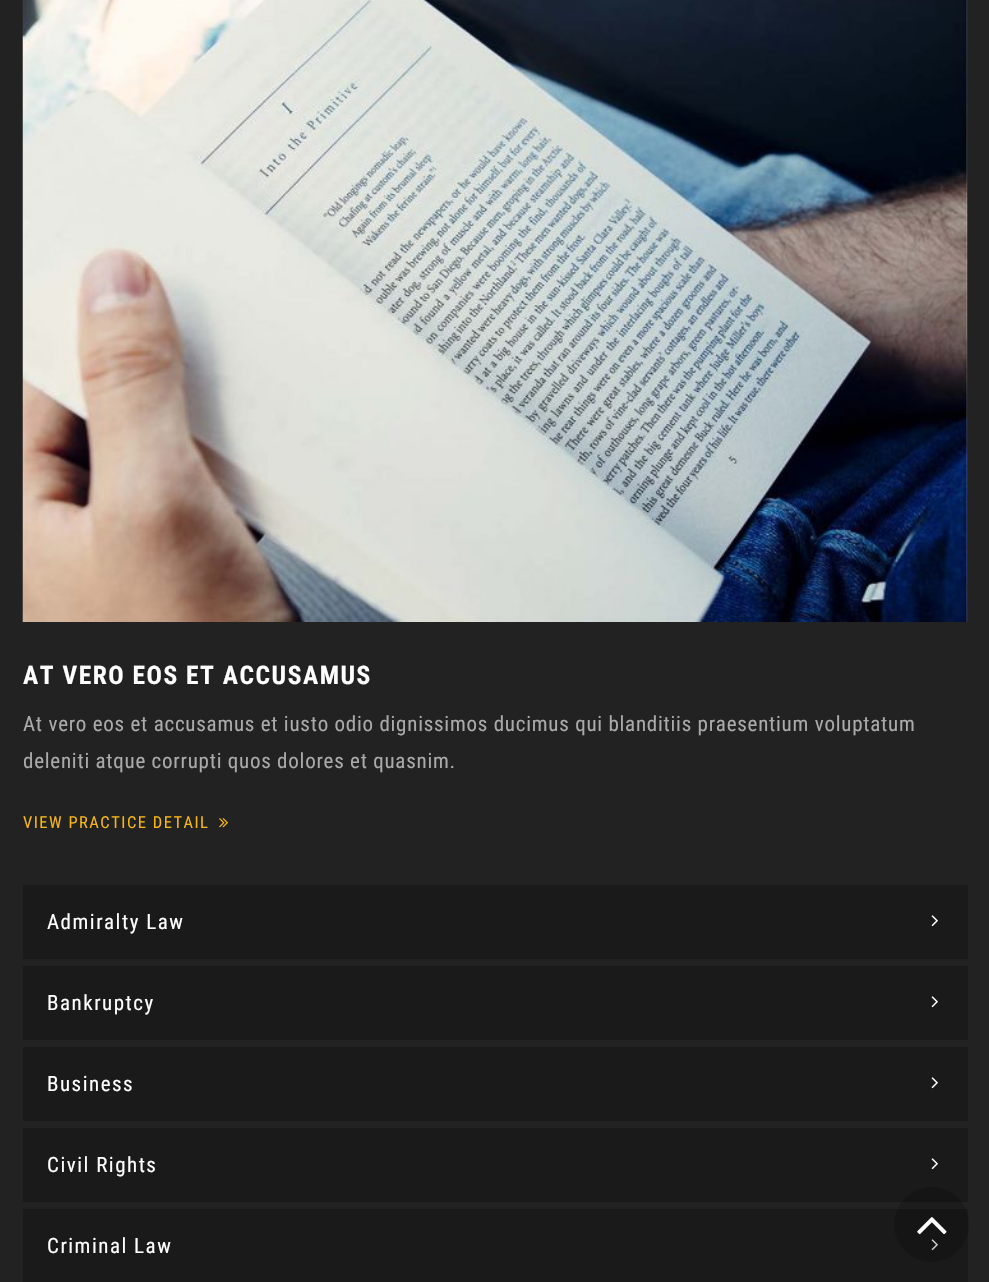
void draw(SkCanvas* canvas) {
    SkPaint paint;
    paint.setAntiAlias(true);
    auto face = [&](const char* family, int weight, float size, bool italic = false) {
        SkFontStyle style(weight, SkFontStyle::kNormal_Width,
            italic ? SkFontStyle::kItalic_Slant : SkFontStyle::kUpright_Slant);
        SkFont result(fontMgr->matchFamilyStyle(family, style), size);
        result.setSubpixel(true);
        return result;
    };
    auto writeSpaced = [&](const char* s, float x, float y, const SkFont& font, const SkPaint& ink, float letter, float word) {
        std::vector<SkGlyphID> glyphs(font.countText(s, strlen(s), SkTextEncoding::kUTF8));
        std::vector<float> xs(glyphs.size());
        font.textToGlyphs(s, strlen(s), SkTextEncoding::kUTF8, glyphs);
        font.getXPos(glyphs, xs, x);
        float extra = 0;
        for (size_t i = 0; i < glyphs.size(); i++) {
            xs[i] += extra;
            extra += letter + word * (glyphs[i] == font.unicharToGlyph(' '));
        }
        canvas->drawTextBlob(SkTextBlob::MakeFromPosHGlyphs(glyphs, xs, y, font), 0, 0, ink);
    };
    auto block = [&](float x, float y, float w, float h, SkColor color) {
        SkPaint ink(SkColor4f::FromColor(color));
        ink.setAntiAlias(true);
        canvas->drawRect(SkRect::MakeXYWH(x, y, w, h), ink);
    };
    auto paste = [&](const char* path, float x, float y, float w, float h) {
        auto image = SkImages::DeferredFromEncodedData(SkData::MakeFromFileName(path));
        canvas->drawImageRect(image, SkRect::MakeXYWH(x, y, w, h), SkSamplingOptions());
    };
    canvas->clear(SkColorSetRGB(34, 34, 34));
    paste("pic1.png", 22, 0, 946, 622);
    auto kFont1 = face("Roboto Condensed", 700, 25.5f);
    paint.setColor(SK_ColorWHITE);
    writeSpaced("AT VERO EOS ET ACCUSAMUS", 23, 684, kFont1, paint, 1.5f, 0);
    auto kFont2 = face("Roboto Condensed", 400, 21);
    paint.setColor(SkColorSetRGB(170, 170, 170));
    writeSpaced("At vero eos et accusamus et iusto odio dignissimos ducimus qui blanditiis praesentium voluptatum", 23, 731, kFont2, paint, 0.75f, 0);
    writeSpaced("deleniti atque corrupti quos dolores et quasnim.", 23, 768, kFont2, paint, 0.75f, 0);
    auto kFont3 = face("Roboto Condensed", 400, 16.5f);
    paint.setColor(SkColorSetRGB(245, 182, 23));
    writeSpaced("VIEW PRACTICE DETAIL", 23, 828, kFont3, paint, 1.5f, 0);
    paste("pic2.png", 219, 818, 9, 10);
    block(23, 885, 945, 74, SkColorSetRGB(26, 26, 26));
    paint.setColor(SK_ColorWHITE);
    writeSpaced("Admiralty Law", 47, 929, kFont2, paint, 1.5f, 0);
    paste("pic3.png", 931, 915, 7, 12);
    block(23, 966, 945, 74, SkColorSetRGB(26, 26, 26));
    writeSpaced("Bankruptcy", 47, 1010, kFont2, paint, 1.5f, 0);
    paste("pic3.png", 931, 996, 7, 12);
    block(23, 1047, 945, 74, SkColorSetRGB(26, 26, 26));
    writeSpaced("Business", 47, 1091, kFont2, paint, 1.5f, 0);
    paste("pic3.png", 931, 1077, 7, 12);
    block(23, 1128, 945, 74, SkColorSetRGB(26, 26, 26));
    writeSpaced("Civil Rights", 47, 1172, kFont2, paint, 1.5f, 0);
    paste("pic3.png", 931, 1158, 7, 12);
    block(23, 1209, 945, 73, SkColorSetRGB(26, 26, 26));
    writeSpaced("Criminal Law", 47, 1253, kFont2, paint, 1.5f, 0);
    paste("pic3.png", 931, 1239, 7, 12);
    paint.setColor(SkColorSetARGB(51, 0, 0, 0));
    canvas->drawCircle(931.5f, 1224.5f, 37.5f, paint);
    paste("pic4.png", 917, 1217, 30, 18);
}
